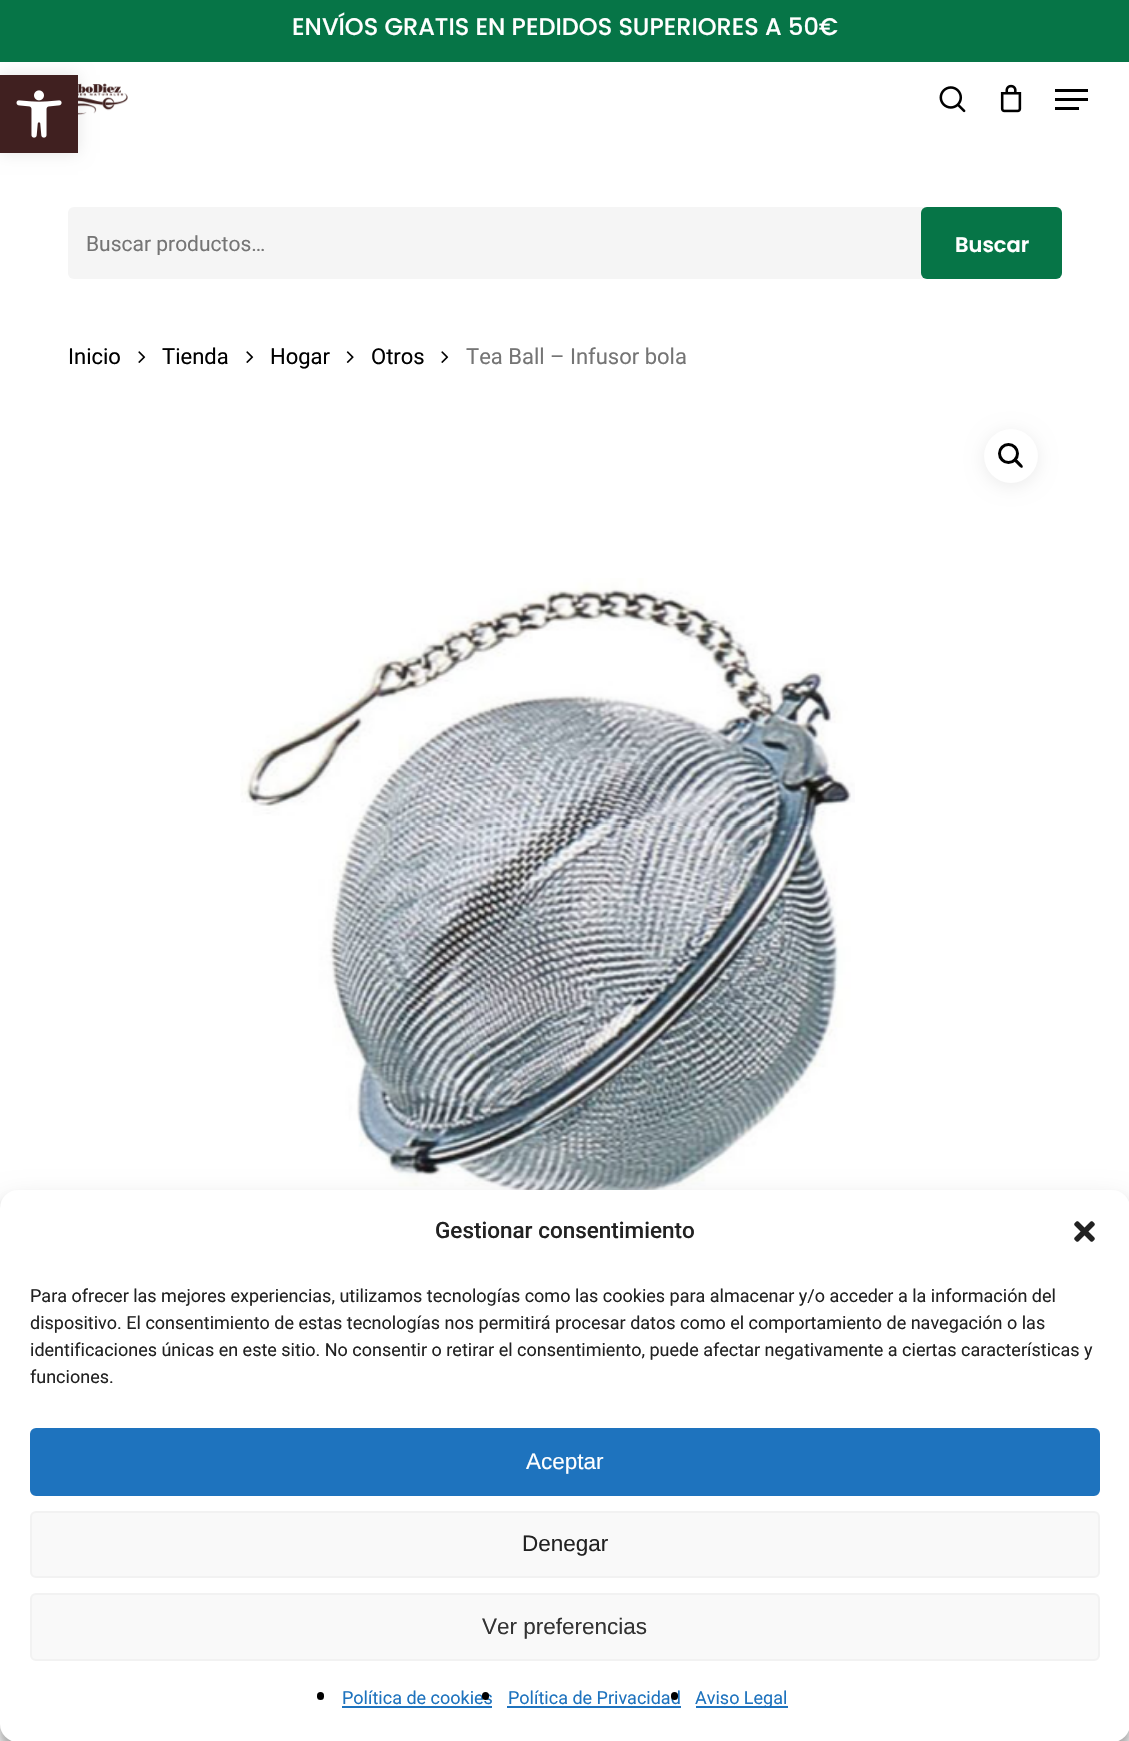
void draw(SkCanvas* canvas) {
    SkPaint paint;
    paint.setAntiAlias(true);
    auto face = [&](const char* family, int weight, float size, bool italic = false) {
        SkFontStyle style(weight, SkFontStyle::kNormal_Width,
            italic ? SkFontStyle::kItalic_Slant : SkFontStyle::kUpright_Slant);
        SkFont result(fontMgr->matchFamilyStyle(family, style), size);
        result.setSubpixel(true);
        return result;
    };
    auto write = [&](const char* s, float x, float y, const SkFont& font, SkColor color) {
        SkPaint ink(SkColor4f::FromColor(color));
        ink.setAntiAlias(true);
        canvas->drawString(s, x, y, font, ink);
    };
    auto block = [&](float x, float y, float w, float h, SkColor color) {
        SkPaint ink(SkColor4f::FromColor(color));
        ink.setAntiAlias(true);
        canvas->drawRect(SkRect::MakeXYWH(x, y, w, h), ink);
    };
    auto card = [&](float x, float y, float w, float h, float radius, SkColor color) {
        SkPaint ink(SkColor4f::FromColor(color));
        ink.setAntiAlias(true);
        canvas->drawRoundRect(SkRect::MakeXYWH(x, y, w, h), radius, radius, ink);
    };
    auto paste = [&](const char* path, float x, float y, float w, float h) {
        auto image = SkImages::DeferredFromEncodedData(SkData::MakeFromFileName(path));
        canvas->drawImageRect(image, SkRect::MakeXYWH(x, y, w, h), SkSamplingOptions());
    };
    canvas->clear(SK_ColorWHITE);
    block(0, 0, 1129, 62, SkColorSetRGB(6, 117, 71));
    paste("pic2.png", 78, 83, 50, 32);
    paint.setColor(SkColorSetARGB(26, 0, 0, 0));
    paint.setMaskFilter(SkMaskFilter::MakeBlur(kNormal_SkBlurStyle, 7.5f));
    canvas->drawRect(SkRect::MakeXYWH(0, 75, 78, 78), paint);
    paint.setMaskFilter(nullptr);
    block(0, 75, 78, 78, SkColorSetRGB(64, 32, 32));
    paste("pic1.png", 16, 90, 46, 48);
    auto kFont1 = face("Poppins", 500, 24);
    write("ENVÍOS GRATIS EN PEDIDOS SUPERIORES A 50€", 292, 35, kFont1, SK_ColorWHITE);
    paste("pic3.png", 939, 86, 27, 27);
    paste("pic4.png", 1000, 84, 22, 29);
    block(1055, 89, 33, 3, SK_ColorBLACK);
    block(1055, 107, 24, 3, SK_ColorBLACK);
    block(1055, 98, 33, 3, SK_ColorBLACK);
    card(68, 207, 994, 72, 6, SkColorSetRGB(245, 245, 245));
    canvas->save();
    canvas->clipRect(SkRect::MakeXYWH(86, 231, 802, 24));
    auto kFont2 = face("Roboto", 400, 21);
    write("Buscar productos…", 86, 251, kFont2, SkColorSetRGB(117, 117, 117));
    canvas->restore();
    card(921, 207, 141, 72, 6, SkColorSetRGB(6, 117, 71));
    auto kFont3 = face("Poppins", 600, 21);
    write("Buscar", 955, 252, kFont3, SK_ColorWHITE);
    auto kFont4 = face("Roboto", 400, 22);
    write("Inicio", 68, 364, kFont4, SK_ColorBLACK);
    paste("pic5.png", 138, 351, 8, 12);
    write("Tienda", 162, 364, kFont4, SK_ColorBLACK);
    paste("pic5.png", 246, 351, 8, 12);
    write("Hogar", 270, 364, kFont4, SK_ColorBLACK);
    paste("pic6.png", 346, 351, 8, 12);
    write("Otros", 371, 364, kFont4, SK_ColorBLACK);
    paste("pic5.png", 441, 351, 8, 12);
    write("Tea Ball – Infusor bola", 466, 364, kFont4, SkColorSetRGB(117, 117, 117));
    paint.setColor(SkColorSetARGB(20, 0, 0, 0));
    paint.setMaskFilter(SkMaskFilter::MakeBlur(kNormal_SkBlurStyle, 9));
    canvas->drawRoundRect(SkRect::MakeXYWH(984, 432, 54, 54), 27, 27, paint);
    paint.setMaskFilter(nullptr);
    paint.setColor(SK_ColorWHITE);
    canvas->drawCircle(1011, 456, 27, paint);
    paint.setStyle(SkPaint::kStroke_Style);
    paint.setStrokeWidth(3);
    paint.setColor(SK_ColorBLACK);
    canvas->drawCircle(1008.5f, 453.5f, 9, paint);
    paint.setStyle(SkPaint::kFill_Style);
    canvas->drawPath(SkPathBuilder().moveTo(1014, 459).cubicTo(1015.5f, 457, 1018.5f, 461, 1019.5f, 462).cubicTo(1020, 463, 1024, 465.5f, 1022.5f, 467.5f).cubicTo(1021, 469, 1018, 465, 1017, 464).cubicTo(1016, 463, 1012.5f, 460.5f, 1014, 459).close().detach(), paint);
    paste("pic7.png", 240, 578, 615, 612);
    paint.setColor(SkColorSetARGB(59, 0, 0, 0));
    paint.setMaskFilter(SkMaskFilter::MakeBlur(kNormal_SkBlurStyle, 4.5f));
    canvas->drawRoundRect(SkRect::MakeXYWH(0, 1199, 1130, 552), 18, 18, paint);
    paint.setMaskFilter(nullptr);
    paint.setColor(SkColorSetARGB(48, 0, 0, 0));
    paint.setMaskFilter(SkMaskFilter::MakeBlur(kNormal_SkBlurStyle, 15));
    canvas->drawRoundRect(SkRect::MakeXYWH(0, 1205, 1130, 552), 18, 18, paint);
    paint.setMaskFilter(nullptr);
    card(0, 1190, 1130, 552, 18, SK_ColorWHITE);
    auto kFont5 = face("Roboto", 500, 22.5f);
    write("Gestionar consentimiento", 435, 1238, kFont5, SkColorSetRGB(34, 34, 34));
    paste("pic8.png", 1074, 1221, 21, 21);
    auto kFont6 = face("Roboto", 400, 18);
    write("Para ofrecer las mejores experiencias, utilizamos tecnologías como las cookies para almacenar y/o acceder a la información del", 30, 1302, kFont6, SkColorSetRGB(34, 34, 34));
    write("dispositivo. El consentimiento de estas tecnologías nos permitirá procesar datos como el comportamiento de navegación o las", 30, 1329, kFont6, SkColorSetRGB(34, 34, 34));
    write("identificaciones únicas en este sitio. No consentir o retirar el consentimiento, puede afectar negativamente a ciertas características y", 30, 1356, kFont6, SkColorSetRGB(34, 34, 34));
    write("funciones.", 30, 1383, kFont6, SkColorSetRGB(34, 34, 34));
    paint.setColor(SkColorSetRGB(30, 115, 190));
    canvas->drawRoundRect(SkRect::MakeXYWH(31, 1429, 1068, 66), 5, 5, paint);
    paint.setStyle(SkPaint::kStroke_Style);
    paint.setStrokeWidth(2);
    canvas->drawRoundRect(SkRect::MakeXYWH(31, 1429, 1068, 66), 5, 5, paint);
    auto kFont7 = face("Liberation Sans", 400, 22.5f);
    write("Aceptar", 526, 1469, kFont7, SK_ColorWHITE);
    paint.setStyle(SkPaint::kFill_Style);
    paint.setColor(SkColorSetRGB(249, 249, 249));
    canvas->drawRoundRect(SkRect::MakeXYWH(31, 1512, 1068, 65), 5, 5, paint);
    paint.setStyle(SkPaint::kStroke_Style);
    paint.setColor(SkColorSetRGB(242, 242, 242));
    canvas->drawRoundRect(SkRect::MakeXYWH(31, 1512, 1068, 65), 5, 5, paint);
    write("Denegar", 522, 1551, kFont7, SkColorSetRGB(34, 34, 34));
    paint.setStyle(SkPaint::kFill_Style);
    paint.setColor(SkColorSetRGB(249, 249, 249));
    canvas->drawRoundRect(SkRect::MakeXYWH(31, 1594, 1068, 66), 5, 5, paint);
    paint.setStyle(SkPaint::kStroke_Style);
    paint.setColor(SkColorSetRGB(242, 242, 242));
    canvas->drawRoundRect(SkRect::MakeXYWH(31, 1594, 1068, 66), 5, 5, paint);
    write("Ver preferencias", 482, 1634, kFont7, SkColorSetRGB(51, 51, 51));
    card(317, 1692, 7, 8, 3.5f, SK_ColorBLACK);
    write("Política de cookies", 342, 1704, kFont6, SkColorSetRGB(30, 115, 190));
    block(342, 1706, 150, 2, SkColorSetRGB(30, 115, 190));
    card(482, 1692, 7, 8, 3.5f, SK_ColorBLACK);
    write("Política de Privacidad", 508, 1704, kFont6, SkColorSetRGB(30, 115, 190));
    block(507, 1706, 174, 2, SkColorSetRGB(30, 115, 190));
    card(671, 1692, 7, 8, 3.5f, SK_ColorBLACK);
    block(696, 1706, 92, 2, SkColorSetRGB(30, 115, 190));
    write("Aviso Legal", 695, 1704, kFont6, SkColorSetRGB(30, 115, 190));
}
